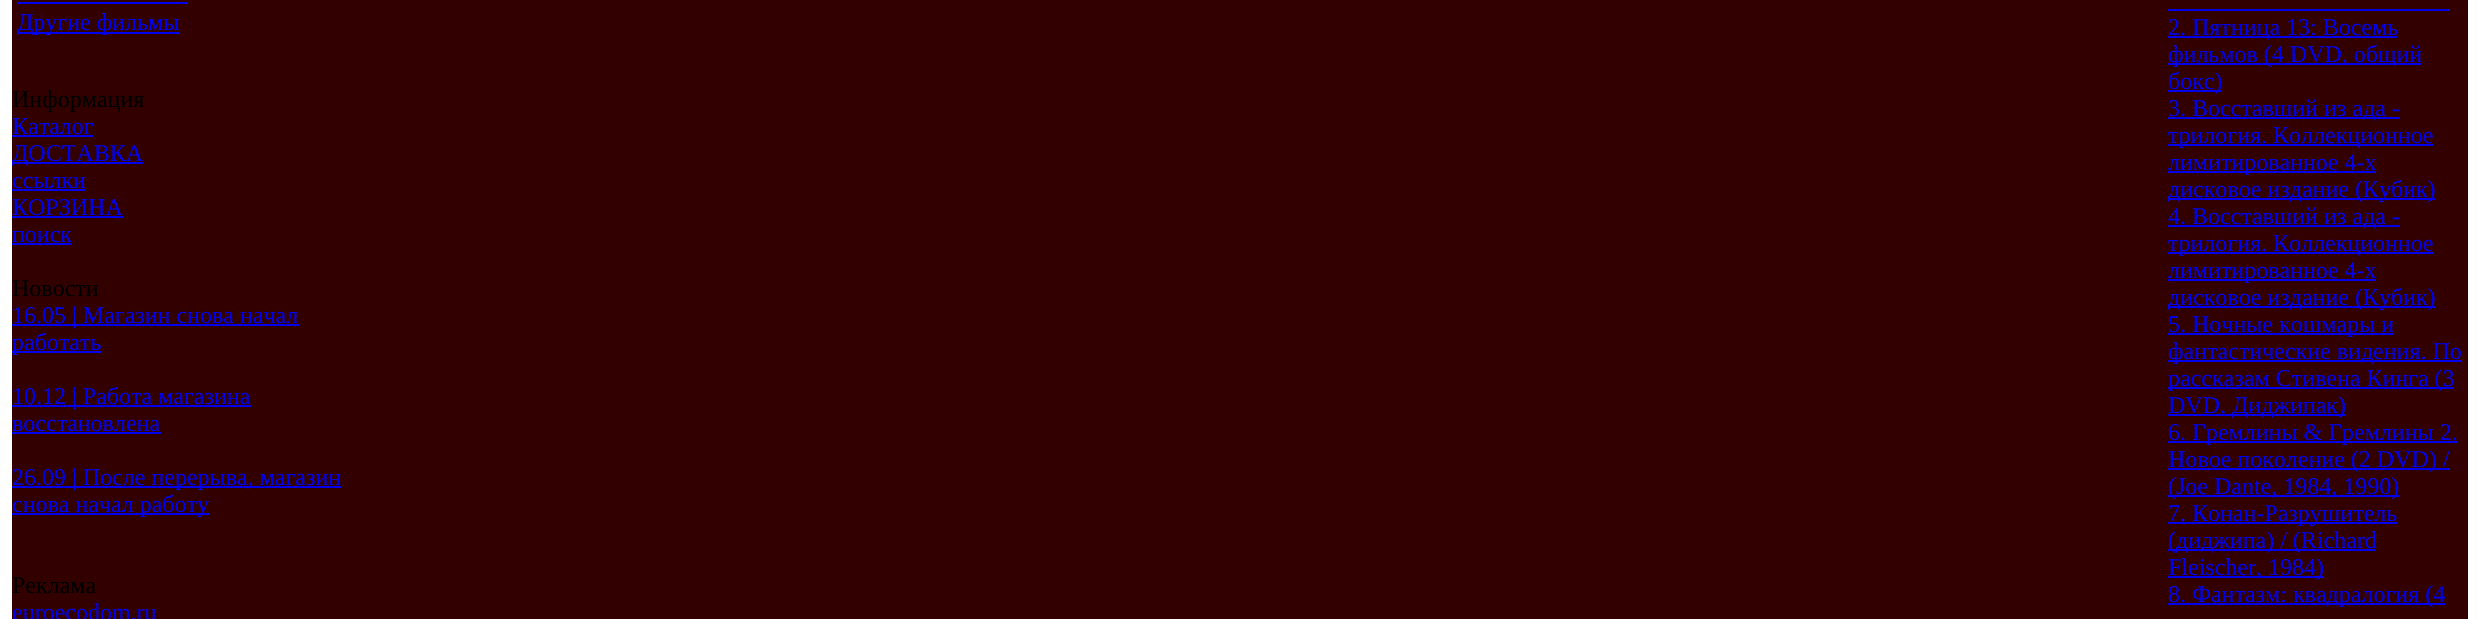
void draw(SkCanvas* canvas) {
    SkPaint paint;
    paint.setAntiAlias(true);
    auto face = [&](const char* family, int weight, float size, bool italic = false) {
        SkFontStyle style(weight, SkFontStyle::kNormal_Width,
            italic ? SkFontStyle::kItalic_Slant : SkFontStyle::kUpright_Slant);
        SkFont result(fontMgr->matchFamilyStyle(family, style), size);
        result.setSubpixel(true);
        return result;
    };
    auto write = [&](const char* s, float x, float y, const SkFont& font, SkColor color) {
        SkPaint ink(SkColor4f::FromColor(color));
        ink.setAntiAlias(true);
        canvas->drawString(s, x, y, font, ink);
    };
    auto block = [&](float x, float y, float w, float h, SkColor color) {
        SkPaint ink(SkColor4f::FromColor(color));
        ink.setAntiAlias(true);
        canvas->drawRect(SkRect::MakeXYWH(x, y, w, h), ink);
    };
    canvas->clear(SK_ColorWHITE);
    block(12, 0, 2456, 619, SkColorSetRGB(51, 0, 0));
    block(17, 2, 171, 2, SkColorSetRGB(0, 0, 238));
    block(17, 32, 162, 2, SkColorSetRGB(0, 0, 238));
    auto kFont1 = face("Liberation Serif", 400, 24);
    write("Другие фильмы", 17, 30, kFont1, SkColorSetRGB(0, 0, 238));
    write("Информация", 12, 107, kFont1, SK_ColorBLACK);
    write("Каталог", 12, 134, kFont1, SkColorSetRGB(0, 0, 238));
    block(12, 135, 81, 2, SkColorSetRGB(0, 0, 238));
    block(12, 162, 131, 2, SkColorSetRGB(0, 0, 238));
    write("ДОСТАВКА", 12, 161, kFont1, SkColorSetRGB(0, 0, 238));
    write("ссылки", 12, 188, kFont1, SkColorSetRGB(0, 0, 238));
    block(12, 189, 74, 2, SkColorSetRGB(0, 0, 238));
    write("КОРЗИНА", 12, 215, kFont1, SkColorSetRGB(0, 0, 238));
    block(12, 216, 111, 2, SkColorSetRGB(0, 0, 238));
    write("поиск", 12, 242, kFont1, SkColorSetRGB(0, 0, 238));
    block(12, 243, 60, 2, SkColorSetRGB(0, 0, 238));
    write("Новости", 12, 296, kFont1, SK_ColorBLACK);
    block(12, 324, 287, 2, SkColorSetRGB(0, 0, 238));
    write("16.05 | Магазин снова начал", 12, 323, kFont1, SkColorSetRGB(0, 0, 238));
    block(12, 351, 90, 2, SkColorSetRGB(0, 0, 238));
    write("работать", 12, 350, kFont1, SkColorSetRGB(0, 0, 238));
    block(12, 405, 239, 2, SkColorSetRGB(0, 0, 238));
    write("10.12 | Работа магазина", 12, 404, kFont1, SkColorSetRGB(0, 0, 238));
    write("восстановлена", 12, 431, kFont1, SkColorSetRGB(0, 0, 238));
    block(12, 432, 149, 2, SkColorSetRGB(0, 0, 238));
    block(12, 486, 329, 2, SkColorSetRGB(0, 0, 238));
    write("26.09 | После перерыва, магазин", 12, 485, kFont1, SkColorSetRGB(0, 0, 238));
    block(12, 513, 197, 2, SkColorSetRGB(0, 0, 238));
    write("снова начал работу", 12, 512, kFont1, SkColorSetRGB(0, 0, 238));
    write("Реклама", 12, 593, kFont1, SK_ColorBLACK);
    write("euroecodom.ru", 12, 620, kFont1, SkColorSetRGB(0, 0, 238));
    block(2168, 9, 282, 2, SkColorSetRGB(0, 0, 238));
    block(2168, 36, 229, 2, SkColorSetRGB(0, 0, 238));
    write("2. Пятница 13: Восемь", 2168, 35, kFont1, SkColorSetRGB(0, 0, 238));
    block(2168, 63, 253, 2, SkColorSetRGB(0, 0, 238));
    write("фильмов (4 DVD, общий", 2168, 62, kFont1, SkColorSetRGB(0, 0, 238));
    block(2168, 90, 54, 2, SkColorSetRGB(0, 0, 238));
    write("бокс)", 2168, 89, kFont1, SkColorSetRGB(0, 0, 238));
    block(2168, 117, 232, 2, SkColorSetRGB(0, 0, 238));
    write("3. Восставший из ада -", 2168, 116, kFont1, SkColorSetRGB(0, 0, 238));
    block(2168, 144, 265, 2, SkColorSetRGB(0, 0, 238));
    write("трилогия. Коллекционное", 2168, 143, kFont1, SkColorSetRGB(0, 0, 238));
    block(2168, 171, 208, 2, SkColorSetRGB(0, 0, 238));
    write("лимитированное 4-х", 2168, 170, kFont1, SkColorSetRGB(0, 0, 238));
    block(2168, 198, 267, 2, SkColorSetRGB(0, 0, 238));
    write("дисковое издание (Кубик)", 2168, 197, kFont1, SkColorSetRGB(0, 0, 238));
    block(2168, 225, 232, 2, SkColorSetRGB(0, 0, 238));
    write("4. Восставший из ада -", 2168, 224, kFont1, SkColorSetRGB(0, 0, 238));
    block(2168, 252, 265, 2, SkColorSetRGB(0, 0, 238));
    write("трилогия. Коллекционное", 2168, 251, kFont1, SkColorSetRGB(0, 0, 238));
    block(2168, 279, 208, 2, SkColorSetRGB(0, 0, 238));
    write("лимитированное 4-х", 2168, 278, kFont1, SkColorSetRGB(0, 0, 238));
    block(2168, 306, 267, 2, SkColorSetRGB(0, 0, 238));
    write("дисковое издание (Кубик)", 2168, 305, kFont1, SkColorSetRGB(0, 0, 238));
    block(2168, 333, 226, 2, SkColorSetRGB(0, 0, 238));
    write("5. Ночные кошмары и", 2168, 332, kFont1, SkColorSetRGB(0, 0, 238));
    block(2168, 360, 294, 2, SkColorSetRGB(0, 0, 238));
    write("фантастические видения. По", 2168, 359, kFont1, SkColorSetRGB(0, 0, 238));
    block(2168, 387, 286, 2, SkColorSetRGB(0, 0, 238));
    write("рассказам Стивена Кинга (3", 2168, 386, kFont1, SkColorSetRGB(0, 0, 238));
    block(2168, 414, 178, 2, SkColorSetRGB(0, 0, 238));
    write("DVD, Диджипак)", 2168, 413, kFont1, SkColorSetRGB(0, 0, 238));
    block(2168, 441, 289, 2, SkColorSetRGB(0, 0, 238));
    write("6. Гремлины & Гремлины 2.", 2168, 440, kFont1, SkColorSetRGB(0, 0, 238));
    block(2168, 468, 282, 2, SkColorSetRGB(0, 0, 238));
    write("Новое поколение (2 DVD) /", 2168, 467, kFont1, SkColorSetRGB(0, 0, 238));
    block(2168, 495, 231, 2, SkColorSetRGB(0, 0, 238));
    write("(Joe Dante, 1984, 1990)", 2168, 494, kFont1, SkColorSetRGB(0, 0, 238));
    block(2168, 522, 229, 2, SkColorSetRGB(0, 0, 238));
    write("7. Конан-Разрушитель", 2168, 521, kFont1, SkColorSetRGB(0, 0, 238));
    block(2168, 549, 208, 2, SkColorSetRGB(0, 0, 238));
    write("(диджипа) / (Richard", 2168, 548, kFont1, SkColorSetRGB(0, 0, 238));
    block(2168, 576, 156, 2, SkColorSetRGB(0, 0, 238));
    write("Fleischer, 1984)", 2168, 575, kFont1, SkColorSetRGB(0, 0, 238));
    block(2168, 603, 277, 2, SkColorSetRGB(0, 0, 238));
    write("8. Фантазм: квадралогия (4", 2168, 602, kFont1, SkColorSetRGB(0, 0, 238));
}
